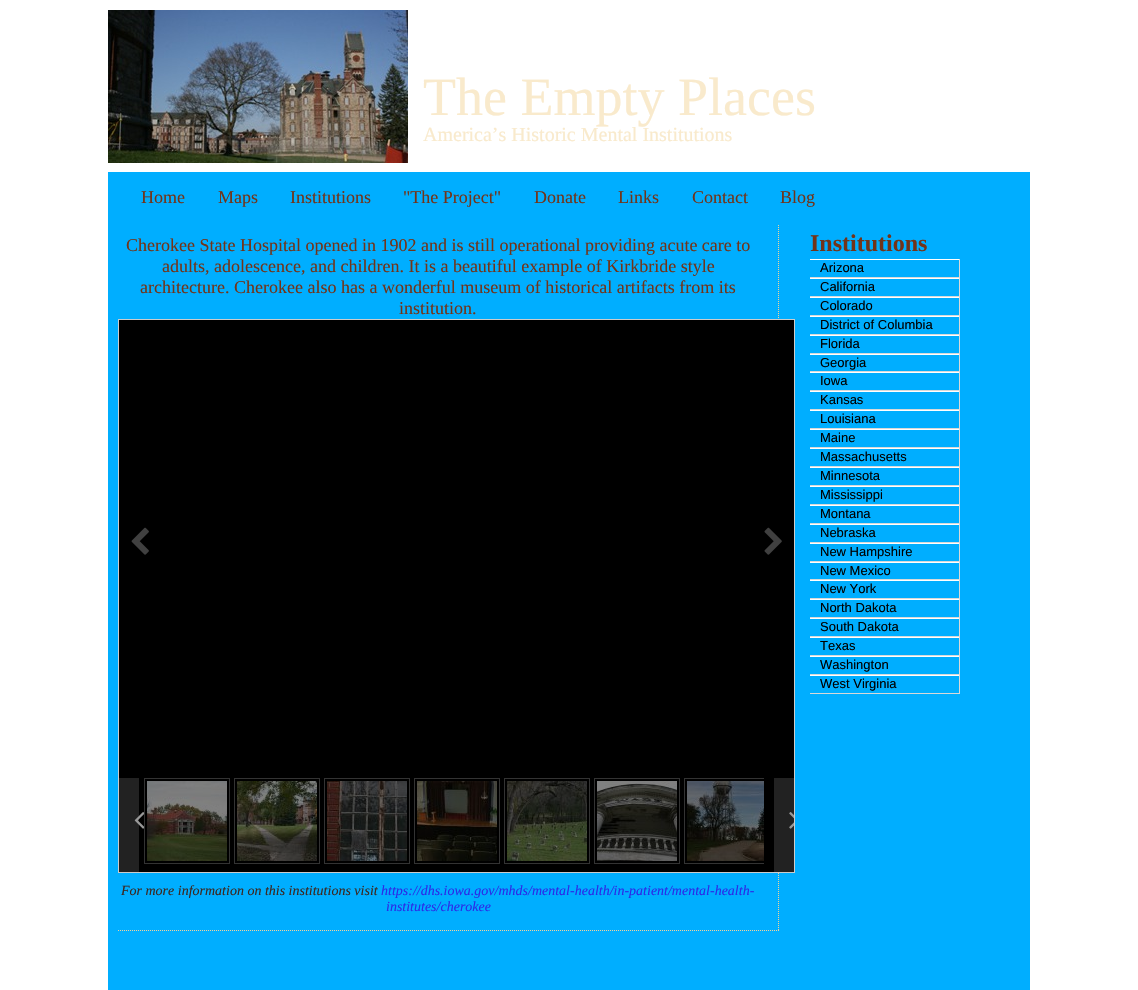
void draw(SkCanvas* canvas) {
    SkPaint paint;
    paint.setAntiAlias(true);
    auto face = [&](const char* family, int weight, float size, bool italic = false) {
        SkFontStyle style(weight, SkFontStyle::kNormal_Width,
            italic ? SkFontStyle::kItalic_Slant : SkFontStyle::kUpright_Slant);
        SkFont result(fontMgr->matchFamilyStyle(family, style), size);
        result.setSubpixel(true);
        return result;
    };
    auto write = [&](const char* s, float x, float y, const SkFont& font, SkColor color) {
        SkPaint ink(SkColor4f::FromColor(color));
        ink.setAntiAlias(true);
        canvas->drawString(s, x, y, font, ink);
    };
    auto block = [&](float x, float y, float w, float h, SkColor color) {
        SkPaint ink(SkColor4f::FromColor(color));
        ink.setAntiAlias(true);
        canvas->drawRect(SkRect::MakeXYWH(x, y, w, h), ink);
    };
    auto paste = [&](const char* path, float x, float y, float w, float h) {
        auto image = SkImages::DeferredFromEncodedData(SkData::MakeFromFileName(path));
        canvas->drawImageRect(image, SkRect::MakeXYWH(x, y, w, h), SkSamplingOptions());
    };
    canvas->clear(SK_ColorWHITE);
    paste("pic1.png", 108, 10, 300, 153);
    auto kFont1 = face("Liberation Serif", 400, 54);
    write("The Empty Places", 423, 115, kFont1, SkColorSetRGB(249, 234, 204));
    auto kFont2 = face("Liberation Serif", 400, 20);
    write("America’s Historic Mental Institutions", 423, 141, kFont2, SkColorSetRGB(249, 234, 204));
    block(108, 172, 922, 818, SkColorSetRGB(0, 174, 255));
    auto kFont3 = face("Liberation Serif", 400, 18);
    write("Home", 141, 203, kFont3, SkColorSetRGB(114, 52, 25));
    write("Maps", 218, 203, kFont3, SkColorSetRGB(114, 52, 25));
    write("Institutions", 290, 203, kFont3, SkColorSetRGB(114, 52, 25));
    write("\"The Project\"", 403, 203, kFont3, SkColorSetRGB(114, 52, 25));
    write("Donate", 534, 203, kFont3, SkColorSetRGB(114, 52, 25));
    write("Links", 618, 203, kFont3, SkColorSetRGB(114, 52, 25));
    write("Contact", 692, 203, kFont3, SkColorSetRGB(114, 52, 25));
    write("Blog", 780, 203, kFont3, SkColorSetRGB(114, 52, 25));
    paint.setStyle(SkPaint::kStroke_Style);
    paint.setStrokeWidth(1);
    paint.setColor(SkColorSetRGB(245, 211, 154));
    paint.setPathEffect(SkDashPathEffect::Make({{1, 1}}, 0));
    canvas->drawPath(SkPathBuilder().moveTo(778.5f, 225).lineTo(778.5f, 931).detach(), paint);
    paint.setPathEffect(nullptr);
    paint.setPathEffect(SkDashPathEffect::Make({{1, 1}}, 0));
    canvas->drawPath(SkPathBuilder().moveTo(118, 930.5f).lineTo(779, 930.5f).detach(), paint);
    paint.setPathEffect(nullptr);
    write("Cherokee State Hospital opened in 1902 and is still operational providing acute care to", 126, 251, kFont3, SkColorSetRGB(114, 52, 25));
    write("adults, adolescence, and children. It is a beautiful example of Kirkbride style", 162, 272, kFont3, SkColorSetRGB(114, 52, 25));
    write("architecture. Cherokee also has a wonderful museum of historical artifacts from its", 140, 293, kFont3, SkColorSetRGB(114, 52, 25));
    write("institution.", 399, 314, kFont3, SkColorSetRGB(114, 52, 25));
    paint.setStyle(SkPaint::kFill_Style);
    paint.setColor(SK_ColorBLACK);
    canvas->drawRect(SkRect::MakeXYWH(118.5f, 319.5f, 676, 553), paint);
    paint.setStyle(SkPaint::kStroke_Style);
    paint.setColor(SkColorSetRGB(204, 204, 204));
    canvas->drawRect(SkRect::MakeXYWH(118.5f, 319.5f, 676, 553), paint);
    paste("pic2.png", 131, 527, 18, 28);
    paste("pic3.png", 764, 527, 18, 28);
    block(119, 778, 20, 94, SkColorSetRGB(34, 34, 34));
    paste("pic4.png", 134, 812, 10, 17);
    paint.setColor(SkColorSetRGB(51, 51, 51));
    canvas->drawRect(SkRect::MakeXYWH(144.5f, 778.5f, 85, 85), paint);
    paste("pic5.png", 147, 781, 80, 80);
    canvas->drawRect(SkRect::MakeXYWH(234.5f, 778.5f, 85, 85), paint);
    paste("pic6.png", 237, 781, 80, 80);
    canvas->drawRect(SkRect::MakeXYWH(324.5f, 778.5f, 85, 85), paint);
    paste("pic7.png", 327, 781, 80, 80);
    canvas->drawRect(SkRect::MakeXYWH(414.5f, 778.5f, 85, 85), paint);
    paste("pic8.png", 417, 781, 80, 80);
    canvas->drawRect(SkRect::MakeXYWH(504.5f, 778.5f, 85, 85), paint);
    paste("pic9.png", 507, 781, 80, 80);
    canvas->drawRect(SkRect::MakeXYWH(594.5f, 778.5f, 85, 85), paint);
    paste("pic10.png", 597, 781, 80, 80);
    canvas->save();
    canvas->clipRect(SkRect::MakeXYWH(144, 778, 620, 94));
    canvas->drawRect(SkRect::MakeXYWH(684.5f, 778.5f, 85, 85), paint);
    canvas->restore();
    paste("pic11.png", 687, 781, 77, 80);
    block(774, 778, 20, 94, SkColorSetRGB(34, 34, 34));
    paste("pic12.png", 789, 812, 5, 17);
    auto kFont4 = face("Liberation Serif", 400, 14, true);
    write("For more information on this institutions visit", 121, 895, kFont4, SkColorSetRGB(59, 40, 33));
    write("https://dhs.iowa.gov/mhds/mental-health/in-patient/mental-health-", 381, 895, kFont4, SkColorSetRGB(43, 43, 231));
    write("institutes/cherokee", 386, 911, kFont4, SkColorSetRGB(43, 43, 231));
    auto kFont5 = face("Liberation Serif", 700, 24);
    write("Institutions", 810, 251, kFont5, SkColorSetRGB(114, 52, 25));
    block(810, 259, 150, 1, SK_ColorWHITE);
    block(959, 259, 1, 19, SkColorSetRGB(217, 217, 217));
    block(810, 277, 150, 1, SkColorSetRGB(217, 217, 217));
    auto kFont6 = face("Liberation Sans", 400, 13);
    write("Arizona", 820, 272, kFont6, SK_ColorBLACK);
    block(810, 278, 150, 1, SK_ColorWHITE);
    block(959, 278, 1, 19, SkColorSetRGB(217, 217, 217));
    block(810, 296, 150, 1, SkColorSetRGB(217, 217, 217));
    write("California", 820, 291, kFont6, SK_ColorBLACK);
    block(810, 297, 150, 1, SK_ColorWHITE);
    block(959, 297, 1, 19, SkColorSetRGB(217, 217, 217));
    block(810, 315, 150, 1, SkColorSetRGB(217, 217, 217));
    write("Colorado", 820, 310, kFont6, SK_ColorBLACK);
    block(810, 316, 150, 1, SK_ColorWHITE);
    block(959, 316, 1, 19, SkColorSetRGB(217, 217, 217));
    block(810, 334, 150, 1, SkColorSetRGB(217, 217, 217));
    write("District of Columbia", 820, 329, kFont6, SK_ColorBLACK);
    block(810, 335, 150, 1, SK_ColorWHITE);
    block(959, 335, 1, 19, SkColorSetRGB(217, 217, 217));
    block(810, 353, 150, 1, SkColorSetRGB(217, 217, 217));
    write("Florida", 820, 348, kFont6, SK_ColorBLACK);
    block(810, 354, 150, 1, SK_ColorWHITE);
    block(959, 354, 1, 18, SkColorSetRGB(217, 217, 217));
    block(810, 371, 150, 1, SkColorSetRGB(217, 217, 217));
    write("Georgia", 820, 367, kFont6, SK_ColorBLACK);
    block(810, 372, 150, 1, SK_ColorWHITE);
    block(959, 372, 1, 19, SkColorSetRGB(217, 217, 217));
    block(810, 390, 150, 1, SkColorSetRGB(217, 217, 217));
    write("Iowa", 820, 385, kFont6, SK_ColorBLACK);
    block(810, 391, 150, 1, SK_ColorWHITE);
    block(959, 391, 1, 19, SkColorSetRGB(217, 217, 217));
    block(810, 409, 150, 1, SkColorSetRGB(217, 217, 217));
    write("Kansas", 820, 404, kFont6, SK_ColorBLACK);
    block(810, 410, 150, 1, SK_ColorWHITE);
    block(959, 410, 1, 19, SkColorSetRGB(217, 217, 217));
    block(810, 428, 150, 1, SkColorSetRGB(217, 217, 217));
    write("Louisiana", 820, 423, kFont6, SK_ColorBLACK);
    block(810, 429, 150, 1, SK_ColorWHITE);
    block(959, 429, 1, 19, SkColorSetRGB(217, 217, 217));
    block(810, 447, 150, 1, SkColorSetRGB(217, 217, 217));
    write("Maine", 820, 442, kFont6, SK_ColorBLACK);
    block(810, 448, 150, 1, SK_ColorWHITE);
    block(959, 448, 1, 19, SkColorSetRGB(217, 217, 217));
    block(810, 466, 150, 1, SkColorSetRGB(217, 217, 217));
    write("Massachusetts", 820, 461, kFont6, SK_ColorBLACK);
    block(810, 467, 150, 1, SK_ColorWHITE);
    block(959, 467, 1, 19, SkColorSetRGB(217, 217, 217));
    block(810, 485, 150, 1, SkColorSetRGB(217, 217, 217));
    write("Minnesota", 820, 480, kFont6, SK_ColorBLACK);
    block(810, 486, 150, 1, SK_ColorWHITE);
    block(959, 486, 1, 19, SkColorSetRGB(217, 217, 217));
    block(810, 504, 150, 1, SkColorSetRGB(217, 217, 217));
    write("Mississippi", 820, 499, kFont6, SK_ColorBLACK);
    block(810, 505, 150, 1, SK_ColorWHITE);
    block(959, 505, 1, 19, SkColorSetRGB(217, 217, 217));
    block(810, 523, 150, 1, SkColorSetRGB(217, 217, 217));
    write("Montana", 820, 518, kFont6, SK_ColorBLACK);
    block(810, 524, 150, 1, SK_ColorWHITE);
    block(959, 524, 1, 19, SkColorSetRGB(217, 217, 217));
    block(810, 542, 150, 1, SkColorSetRGB(217, 217, 217));
    write("Nebraska", 820, 537, kFont6, SK_ColorBLACK);
    block(810, 543, 150, 1, SK_ColorWHITE);
    block(959, 543, 1, 19, SkColorSetRGB(217, 217, 217));
    block(810, 561, 150, 1, SkColorSetRGB(217, 217, 217));
    write("New Hampshire", 820, 556, kFont6, SK_ColorBLACK);
    block(810, 562, 150, 1, SK_ColorWHITE);
    block(959, 562, 1, 18, SkColorSetRGB(217, 217, 217));
    block(810, 579, 150, 1, SkColorSetRGB(217, 217, 217));
    write("New Mexico", 820, 575, kFont6, SK_ColorBLACK);
    block(810, 580, 150, 1, SK_ColorWHITE);
    block(959, 580, 1, 19, SkColorSetRGB(217, 217, 217));
    block(810, 598, 150, 1, SkColorSetRGB(217, 217, 217));
    write("New York", 820, 593, kFont6, SK_ColorBLACK);
    block(810, 599, 150, 1, SK_ColorWHITE);
    block(959, 599, 1, 19, SkColorSetRGB(217, 217, 217));
    block(810, 617, 150, 1, SkColorSetRGB(217, 217, 217));
    write("North Dakota", 820, 612, kFont6, SK_ColorBLACK);
    block(810, 618, 150, 1, SK_ColorWHITE);
    block(959, 618, 1, 19, SkColorSetRGB(217, 217, 217));
    block(810, 636, 150, 1, SkColorSetRGB(217, 217, 217));
    write("South Dakota", 820, 631, kFont6, SK_ColorBLACK);
    block(810, 637, 150, 1, SK_ColorWHITE);
    block(959, 637, 1, 19, SkColorSetRGB(217, 217, 217));
    block(810, 655, 150, 1, SkColorSetRGB(217, 217, 217));
    write("Texas", 820, 650, kFont6, SK_ColorBLACK);
    block(810, 656, 150, 1, SK_ColorWHITE);
    block(959, 656, 1, 19, SkColorSetRGB(217, 217, 217));
    block(810, 674, 150, 1, SkColorSetRGB(217, 217, 217));
    write("Washington", 820, 669, kFont6, SK_ColorBLACK);
    block(810, 675, 150, 1, SK_ColorWHITE);
    block(959, 675, 1, 19, SkColorSetRGB(217, 217, 217));
    block(810, 693, 150, 1, SkColorSetRGB(217, 217, 217));
    write("West Virginia", 820, 688, kFont6, SK_ColorBLACK);
}
